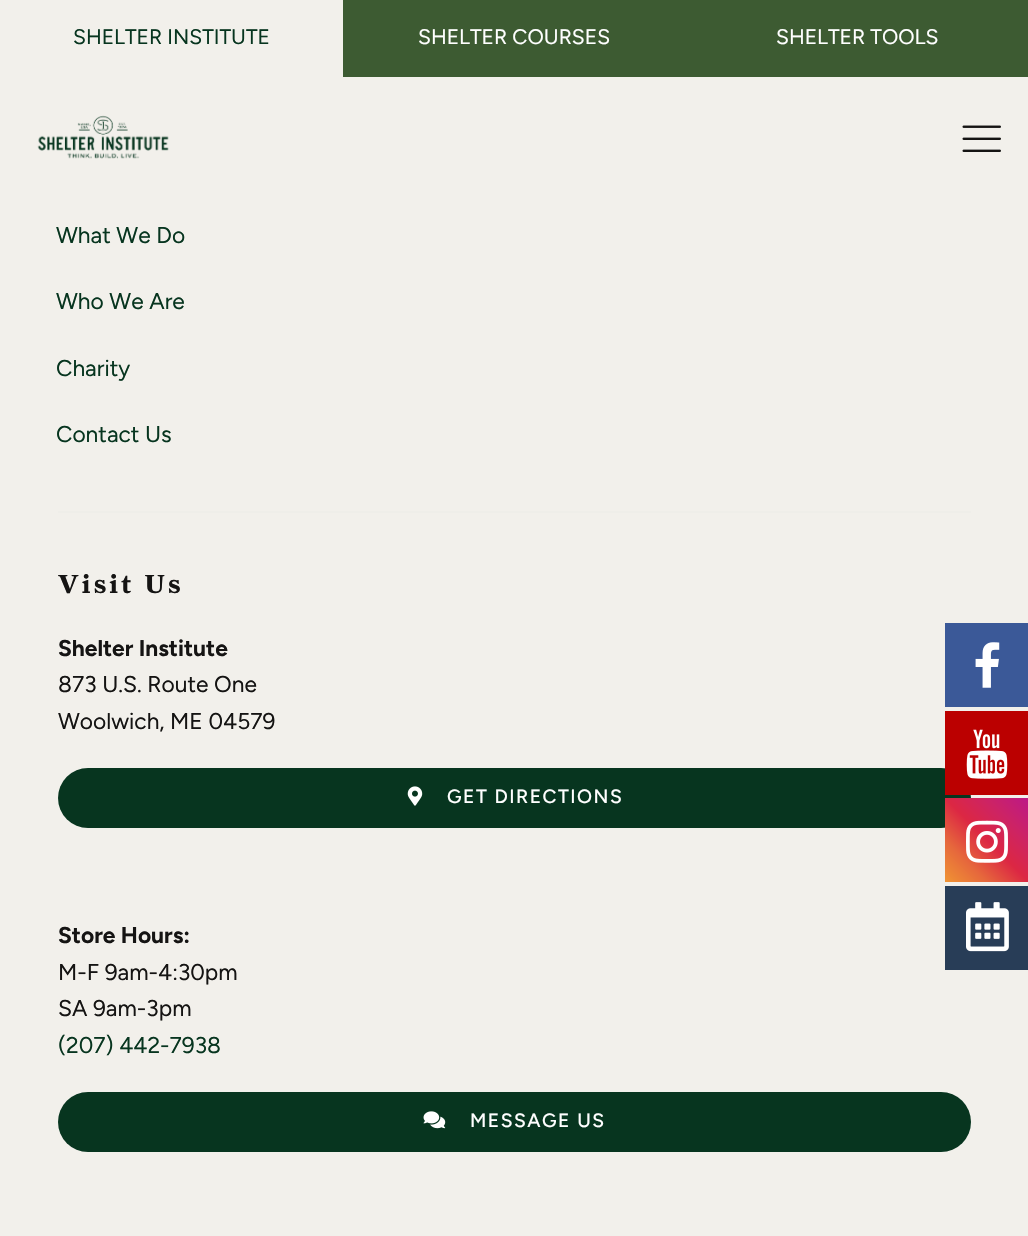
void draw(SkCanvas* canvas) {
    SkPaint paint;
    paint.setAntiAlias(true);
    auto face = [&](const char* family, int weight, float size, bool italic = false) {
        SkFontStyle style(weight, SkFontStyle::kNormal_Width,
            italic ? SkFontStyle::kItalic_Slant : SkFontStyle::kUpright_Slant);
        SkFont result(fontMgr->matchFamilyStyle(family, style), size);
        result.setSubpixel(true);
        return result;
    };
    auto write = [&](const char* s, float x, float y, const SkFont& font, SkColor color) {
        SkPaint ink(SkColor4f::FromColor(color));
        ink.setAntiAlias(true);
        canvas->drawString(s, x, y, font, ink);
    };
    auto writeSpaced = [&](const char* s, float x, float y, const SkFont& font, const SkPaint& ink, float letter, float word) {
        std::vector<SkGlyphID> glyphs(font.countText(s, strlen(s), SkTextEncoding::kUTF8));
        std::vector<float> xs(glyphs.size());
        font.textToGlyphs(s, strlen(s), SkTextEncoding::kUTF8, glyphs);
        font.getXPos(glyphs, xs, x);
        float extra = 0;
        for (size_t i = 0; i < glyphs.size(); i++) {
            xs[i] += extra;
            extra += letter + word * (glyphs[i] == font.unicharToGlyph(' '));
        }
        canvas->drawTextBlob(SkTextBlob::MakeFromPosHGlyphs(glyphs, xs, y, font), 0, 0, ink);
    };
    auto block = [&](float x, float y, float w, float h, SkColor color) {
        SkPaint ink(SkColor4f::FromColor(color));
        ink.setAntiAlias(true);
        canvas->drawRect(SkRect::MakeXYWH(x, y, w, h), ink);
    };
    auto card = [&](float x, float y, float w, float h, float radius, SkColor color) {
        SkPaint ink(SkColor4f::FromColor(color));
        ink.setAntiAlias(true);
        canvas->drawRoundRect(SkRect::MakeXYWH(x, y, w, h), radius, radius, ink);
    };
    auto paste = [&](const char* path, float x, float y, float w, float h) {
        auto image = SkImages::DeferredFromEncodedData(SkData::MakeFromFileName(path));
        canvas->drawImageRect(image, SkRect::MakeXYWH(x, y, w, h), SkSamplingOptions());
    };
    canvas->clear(SkColorSetRGB(242, 240, 235));
    block(343, 0, 685, 77, SkColorSetRGB(61, 91, 50));
    auto kFont1 = face("Figtree", 400, 21);
    write("SHELTER INSTITUTE", 73, 44, kFont1, SkColorSetRGB(7, 53, 31));
    write("SHELTER COURSES", 418, 44, kFont1, SK_ColorWHITE);
    write("SHELTER TOOLS", 776, 44, kFont1, SK_ColorWHITE);
    paste("pic1.png", 37, 115, 132, 44);
    paste("pic2.png", 962, 125, 39, 27);
    block(58, 511, 913, 2, SkColorSetRGB(239, 238, 233));
    auto kFont2 = face("Figtree", 400, 22.75f);
    write("What We Do", 56, 243, kFont2, SkColorSetRGB(7, 53, 31));
    write("Who We Are", 56, 309, kFont2, SkColorSetRGB(7, 53, 31));
    write("Charity", 56, 376, kFont2, SkColorSetRGB(7, 53, 31));
    write("Contact Us", 56, 442, kFont2, SkColorSetRGB(7, 53, 31));
    auto kFont3 = face("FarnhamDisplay", 700, 26.25f);
    paint.setColor(SkColorSetRGB(21, 20, 19));
    writeSpaced("Visit Us", 58, 593, kFont3, paint, 3.5f, 0);
    auto kFont4 = face("Figtree", 700, 22.75f);
    write("Shelter Institute", 58, 656, kFont4, SkColorSetRGB(21, 20, 19));
    write("873 U.S. Route One", 58, 692, kFont2, SkColorSetRGB(21, 20, 19));
    write("Woolwich, ME 04579", 58, 729, kFont2, SkColorSetRGB(21, 20, 19));
    card(58, 768, 913, 60, 30, SkColorSetRGB(7, 53, 31));
    paste("pic3.png", 407, 786, 16, 20);
    auto kFont5 = face("Figtree", 500, 19.25f);
    paint.setColor(SK_ColorWHITE);
    writeSpaced("GET DIRECTIONS", 447, 803, kFont5, paint, 1.5f, 0);
    write("Store Hours:", 58, 943, kFont4, SkColorSetRGB(21, 20, 19));
    write("M-F 9am-4:30pm", 58, 980, kFont2, SkColorSetRGB(21, 20, 19));
    write("SA 9am-3pm", 58, 1016, kFont2, SkColorSetRGB(21, 20, 19));
    write("(207) 442-7938", 58, 1053, kFont2, SkColorSetRGB(7, 53, 31));
    card(58, 1092, 913, 60, 30, SkColorSetRGB(7, 53, 31));
    paste("pic4.png", 423, 1111, 23, 18);
    writeSpaced("MESSAGE US", 470, 1127, kFont5, paint, 1.5f, 0);
    block(945, 623, 83, 84, SkColorSetRGB(59, 89, 152));
    paste("pic5.png", 975, 642, 25, 46);
    block(945, 711, 83, 84, SkColorSetRGB(187, 0, 0));
    paste("pic6.png", 966, 729, 42, 50);
    {
        const SkColor colors[] = {SkColorSetRGB(240, 148, 51), SkColorSetRGB(230, 104, 60), SkColorSetRGB(220, 39, 67), SkColorSetRGB(204, 35, 102), SkColorSetRGB(188, 24, 136)};
        const float stops[] = {0, 0.25f, 0.5f, 0.75f, 1};
        const SkPoint ends[] = {{945, 882}, {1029, 798}};
        paint.setShader(SkGradientShader::MakeLinear(ends, colors, stops, 5, SkTileMode::kClamp));
        paint.setAlpha(255);
    }
    canvas->drawRect(SkRect::MakeXYWH(945, 798, 83, 84), paint);
    paste("pic7.png", 966, 820, 42, 43);
    block(945, 886, 83, 84, SkColorSetRGB(40, 61, 87));
    paste("pic8.png", 966, 902, 43, 50);
}
